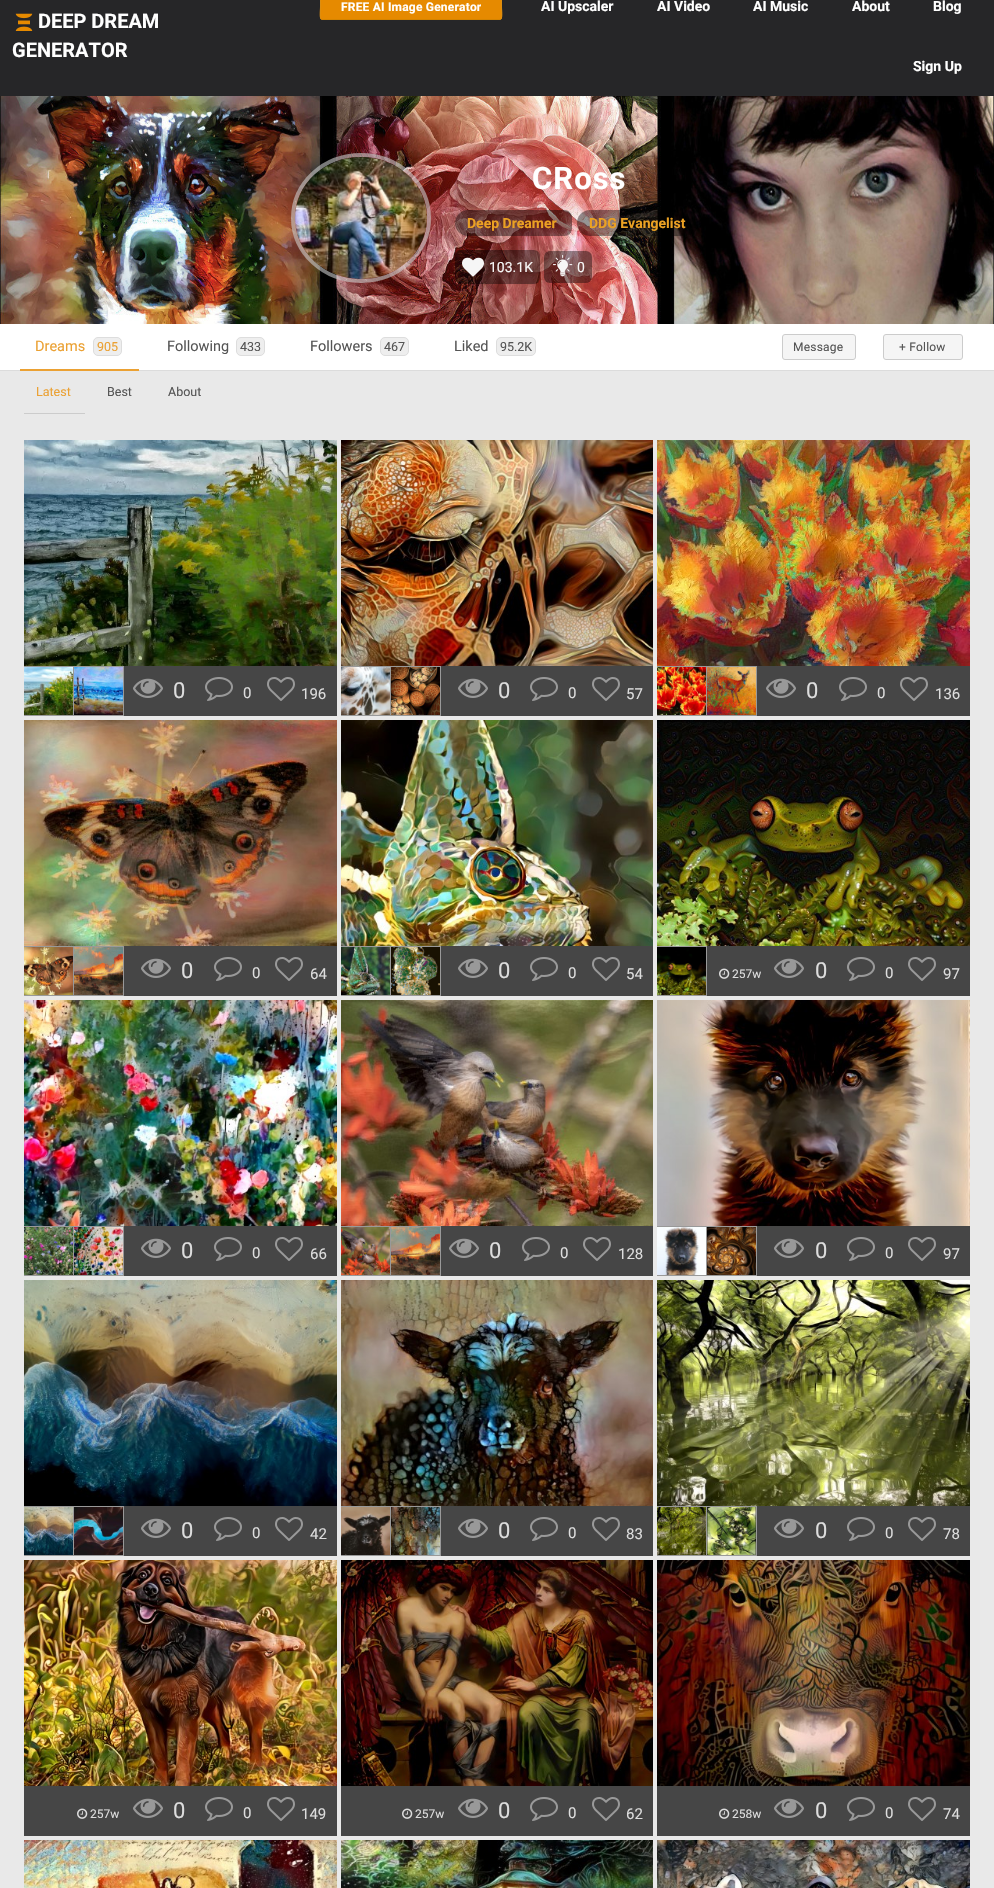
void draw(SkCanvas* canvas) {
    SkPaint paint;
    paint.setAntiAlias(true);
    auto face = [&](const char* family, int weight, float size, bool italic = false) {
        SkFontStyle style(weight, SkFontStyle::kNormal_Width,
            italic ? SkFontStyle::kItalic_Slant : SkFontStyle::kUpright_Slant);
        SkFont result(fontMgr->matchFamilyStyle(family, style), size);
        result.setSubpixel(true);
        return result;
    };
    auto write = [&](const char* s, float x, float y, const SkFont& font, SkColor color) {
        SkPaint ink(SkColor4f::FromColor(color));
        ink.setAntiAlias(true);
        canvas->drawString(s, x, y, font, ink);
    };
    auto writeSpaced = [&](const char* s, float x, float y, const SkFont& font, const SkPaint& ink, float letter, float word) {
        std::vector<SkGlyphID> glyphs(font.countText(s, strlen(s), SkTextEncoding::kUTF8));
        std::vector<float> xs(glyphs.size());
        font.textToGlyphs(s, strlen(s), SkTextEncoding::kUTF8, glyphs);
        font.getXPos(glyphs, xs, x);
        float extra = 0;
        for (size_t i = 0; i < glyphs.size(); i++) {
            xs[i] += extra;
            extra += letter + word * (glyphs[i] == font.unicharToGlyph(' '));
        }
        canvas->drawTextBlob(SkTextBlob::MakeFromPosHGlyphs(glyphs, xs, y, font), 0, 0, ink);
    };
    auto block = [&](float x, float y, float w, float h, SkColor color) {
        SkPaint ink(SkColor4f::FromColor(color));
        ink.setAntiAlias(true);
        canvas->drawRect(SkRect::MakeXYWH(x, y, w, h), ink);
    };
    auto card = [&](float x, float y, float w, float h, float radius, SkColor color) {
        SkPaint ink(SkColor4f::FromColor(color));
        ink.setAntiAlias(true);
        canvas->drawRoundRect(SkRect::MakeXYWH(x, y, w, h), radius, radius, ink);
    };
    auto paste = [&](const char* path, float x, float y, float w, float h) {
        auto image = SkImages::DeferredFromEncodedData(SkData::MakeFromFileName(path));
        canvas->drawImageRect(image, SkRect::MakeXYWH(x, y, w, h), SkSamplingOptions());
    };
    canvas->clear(SkColorSetRGB(233, 233, 233));
    block(0, 0, 994, 96, SkColorSetRGB(38, 38, 40));
    paste("pic1.png", 15, 13, 18, 18);
    auto kFont1 = face("Roboto", 700, 20);
    write("DEEP DREAM", 38, 28, kFont1, SK_ColorWHITE);
    write("GENERATOR", 12, 57, kFont1, SK_ColorWHITE);
    card(320, -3, 182, 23, 3, SkColorSetRGB(230, 138, 0));
    paint.setStyle(SkPaint::kStroke_Style);
    paint.setStrokeWidth(1);
    paint.setColor(SkColorSetRGB(214, 132, 0));
    canvas->drawPath(SkPathBuilder().moveTo(501, 19).lineTo(499, 19.5f).lineTo(323, 19.5f).lineTo(321, 19).detach(), paint);
    paint.setColor(SkColorSetRGB(221, 142, 17));
    canvas->drawPath(SkPathBuilder().moveTo(321, 19).cubicTo(319.5f, 17, 320.5f, 9.5f, 320.5f, 7).lineTo(320.5f, 0.5f).cubicTo(320.5f, -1.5f, 320, -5.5f, 323, -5.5f).lineTo(499, -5.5f).cubicTo(502, -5.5f, 501.5f, -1.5f, 501.5f, 0.5f).lineTo(501.5f, 7).cubicTo(501.5f, 9.5f, 502.5f, 17, 501, 19).detach(), paint);
    auto kFont2 = face("Roboto", 700, 12);
    paint.setStyle(SkPaint::kFill_Style);
    paint.setColor(SK_ColorWHITE);
    writeSpaced("FREE AI Image Generator", 341, 11, kFont2, paint, 0.2f, 0);
    auto kFont3 = face("Roboto", 700, 14);
    write("AI Upscaler", 541, 11, kFont3, SK_ColorWHITE);
    write("AI Video", 657, 11, kFont3, SK_ColorWHITE);
    write("AI Music", 753, 11, kFont3, SK_ColorWHITE);
    write("About", 852, 11, kFont3, SK_ColorWHITE);
    write("Blog", 933, 11, kFont3, SK_ColorWHITE);
    write("Sign Up", 913, 71, kFont3, SK_ColorWHITE);
    paste("pic2.png", 0, 96, 994, 228);
    paint.setStyle(SkPaint::kStroke_Style);
    paint.setStrokeWidth(4);
    paint.setColor(SkColorSetARGB(153, 204, 204, 204));
    canvas->drawPath(SkPathBuilder().moveTo(361, 155).cubicTo(398.5f, 155, 429, 183, 429, 218).cubicTo(429, 253, 398.5f, 281, 361, 281).cubicTo(323.5f, 281, 293, 253, 293, 218).cubicTo(293, 183, 323.5f, 155, 361, 155).close().detach(), paint);
    paste("pic3.png", 295, 157, 132, 122);
    auto kFont4 = face("Roboto", 700, 31);
    paint.setStyle(SkPaint::kFill_Style);
    paint.setColor(SK_ColorWHITE);
    writeSpaced("CRoss", 532, 189, kFont4, paint, 1, 0);
    paint.setColor(SkColorSetARGB(102, 0, 0, 0));
    canvas->drawPath(SkPathBuilder().moveTo(468, 210).lineTo(557, 210).lineTo(557, 236).lineTo(468, 236).cubicTo(461, 236, 455, 230, 455, 223).cubicTo(455, 216, 461, 210, 468, 210).close().detach(), paint);
    write("Deep Dreamer", 467, 228, kFont3, SkColorSetRGB(235, 161, 35));
    canvas->drawPath(SkPathBuilder().moveTo(557, 210).lineTo(564.5f, 210).cubicTo(568.5f, 210, 572, 213.5f, 572, 217.5f).lineTo(572, 228.5f).cubicTo(572, 232.5f, 568.5f, 236, 564.5f, 236).lineTo(557, 236).close().detach(), paint);
    card(577, 210, 121, 26, 13, SkColorSetARGB(102, 0, 0, 0));
    write("DDG Evangelist", 589, 228, kFont3, SkColorSetRGB(235, 161, 35));
    card(455, 250, 85, 34, 6, SkColorSetARGB(102, 0, 0, 0));
    paste("pic4.png", 462, 257, 22, 20);
    auto kFont5 = face("Roboto", 400, 14);
    write("103.1K", 489, 272, kFont5, SkColorSetRGB(246, 246, 246));
    card(544, 251, 48, 32, 6, SkColorSetARGB(102, 0, 0, 0));
    paste("pic5.png", 553, 255, 20, 22);
    write("0", 577, 272, kFont5, SkColorSetRGB(246, 246, 246));
    block(0, 324, 994, 46, SK_ColorWHITE);
    block(0, 370, 994, 1, SkColorSetRGB(220, 220, 220));
    block(20, 369, 119, 2, SkColorSetRGB(235, 161, 51));
    auto kFont6 = face("Roboto", 400, 14.5f);
    write("Dreams", 35, 351, kFont6, SkColorSetRGB(235, 161, 51));
    paint.setColor(SkColorSetRGB(238, 238, 238));
    canvas->drawRoundRect(SkRect::MakeXYWH(93.5f, 337.5f, 28, 18), 4.5f, 4.5f, paint);
    paint.setStyle(SkPaint::kStroke_Style);
    paint.setStrokeWidth(1);
    paint.setColor(SkColorSetRGB(221, 221, 221));
    canvas->drawRoundRect(SkRect::MakeXYWH(93.5f, 337.5f, 28, 18), 4.5f, 4.5f, paint);
    auto kFont7 = face("Roboto", 400, 12.5f);
    write("905", 97, 351, kFont7, SkColorSetRGB(235, 161, 51));
    write("Following", 167, 351, kFont6, SkColorSetRGB(85, 85, 85));
    paint.setStyle(SkPaint::kFill_Style);
    paint.setColor(SkColorSetRGB(238, 238, 238));
    canvas->drawRoundRect(SkRect::MakeXYWH(236.5f, 337.5f, 28, 18), 4.5f, 4.5f, paint);
    paint.setStyle(SkPaint::kStroke_Style);
    paint.setColor(SkColorSetRGB(221, 221, 221));
    canvas->drawRoundRect(SkRect::MakeXYWH(236.5f, 337.5f, 28, 18), 4.5f, 4.5f, paint);
    write("433", 240, 351, kFont7, SkColorSetRGB(85, 85, 85));
    write("Followers", 310, 351, kFont6, SkColorSetRGB(85, 85, 85));
    paint.setStyle(SkPaint::kFill_Style);
    paint.setColor(SkColorSetRGB(238, 238, 238));
    canvas->drawRoundRect(SkRect::MakeXYWH(380.5f, 337.5f, 28, 18), 4.5f, 4.5f, paint);
    paint.setStyle(SkPaint::kStroke_Style);
    paint.setColor(SkColorSetRGB(221, 221, 221));
    canvas->drawRoundRect(SkRect::MakeXYWH(380.5f, 337.5f, 28, 18), 4.5f, 4.5f, paint);
    write("467", 384, 351, kFont7, SkColorSetRGB(85, 85, 85));
    write("Liked", 454, 351, kFont6, SkColorSetRGB(85, 85, 85));
    paint.setStyle(SkPaint::kFill_Style);
    paint.setColor(SkColorSetRGB(238, 238, 238));
    canvas->drawRoundRect(SkRect::MakeXYWH(496.5f, 337.5f, 39, 18), 4.5f, 4.5f, paint);
    paint.setStyle(SkPaint::kStroke_Style);
    paint.setColor(SkColorSetRGB(221, 221, 221));
    canvas->drawRoundRect(SkRect::MakeXYWH(496.5f, 337.5f, 39, 18), 4.5f, 4.5f, paint);
    write("95.2K", 500, 351, kFont7, SkColorSetRGB(85, 85, 85));
    paint.setStyle(SkPaint::kFill_Style);
    paint.setColor(SkColorSetRGB(245, 245, 245));
    canvas->drawRoundRect(SkRect::MakeXYWH(782.5f, 334.5f, 73, 25), 2.5f, 2.5f, paint);
    paint.setStyle(SkPaint::kStroke_Style);
    paint.setColor(SkColorSetRGB(204, 204, 204));
    canvas->drawRoundRect(SkRect::MakeXYWH(782.5f, 334.5f, 73, 25), 2.5f, 2.5f, paint);
    auto kFont8 = face("Roboto", 400, 12);
    paint.setStyle(SkPaint::kFill_Style);
    paint.setColor(SkColorSetRGB(85, 85, 85));
    writeSpaced("Message", 793, 351, kFont8, paint, 0.2f, 0);
    paint.setColor(SkColorSetRGB(245, 245, 245));
    canvas->drawRoundRect(SkRect::MakeXYWH(883.5f, 334.5f, 79, 25), 2.5f, 2.5f, paint);
    paint.setStyle(SkPaint::kStroke_Style);
    paint.setColor(SkColorSetRGB(204, 204, 204));
    canvas->drawRoundRect(SkRect::MakeXYWH(883.5f, 334.5f, 79, 25), 2.5f, 2.5f, paint);
    paint.setStyle(SkPaint::kFill_Style);
    paint.setColor(SkColorSetRGB(85, 85, 85));
    writeSpaced("+ Follow", 899, 351, kFont8, paint, 0.2f, 0);
    block(24, 413, 61, 1, SkColorSetRGB(204, 204, 204));
    write("Latest", 36, 396, kFont7, SkColorSetRGB(235, 161, 51));
    write("Best", 107, 396, kFont7, SkColorSetRGB(85, 85, 85));
    write("About", 168, 396, kFont7, SkColorSetRGB(85, 85, 85));
    paste("pic6.png", 24, 440, 313, 226);
    block(124, 666, 213, 50, SkColorSetRGB(70, 70, 70));
    block(24, 666, 100, 1, SkColorSetRGB(153, 153, 153));
    block(73, 666, 1, 50, SkColorSetRGB(153, 153, 153));
    block(24, 715, 50, 1, SkColorSetRGB(153, 153, 153));
    paste("pic7.png", 24, 667, 49, 48);
    block(123, 666, 1, 50, SkColorSetRGB(153, 153, 153));
    block(74, 715, 50, 1, SkColorSetRGB(153, 153, 153));
    paste("pic8.png", 74, 667, 49, 48);
    paste("pic9.png", 133, 678, 30, 20);
    auto kFont9 = face("Roboto", 400, 22);
    write("0", 173, 698, kFont9, SkColorSetRGB(221, 221, 221));
    paste("pic10.png", 205, 677, 28, 24);
    auto kFont10 = face("Roboto", 400, 15);
    write("0", 243, 698, kFont10, SkColorSetRGB(221, 221, 221));
    paste("pic11.png", 267, 677, 28, 24);
    write("196", 301, 699, kFont10, SkColorSetRGB(221, 221, 221));
    paste("pic12.png", 341, 440, 312, 226);
    block(441, 666, 212, 50, SkColorSetRGB(70, 70, 70));
    block(341, 666, 100, 1, SkColorSetRGB(153, 153, 153));
    block(390, 666, 1, 50, SkColorSetRGB(153, 153, 153));
    block(341, 715, 50, 1, SkColorSetRGB(153, 153, 153));
    paste("pic13.png", 341, 667, 49, 48);
    block(440, 666, 1, 50, SkColorSetRGB(153, 153, 153));
    block(391, 715, 50, 1, SkColorSetRGB(153, 153, 153));
    paste("pic14.png", 391, 667, 49, 48);
    paste("pic9.png", 458, 678, 30, 20);
    write("0", 498, 698, kFont9, SkColorSetRGB(221, 221, 221));
    paste("pic10.png", 530, 677, 28, 24);
    write("0", 568, 698, kFont10, SkColorSetRGB(221, 221, 221));
    paste("pic11.png", 592, 677, 28, 24);
    write("57", 626, 699, kFont10, SkColorSetRGB(221, 221, 221));
    paste("pic15.png", 657, 440, 313, 226);
    block(757, 666, 213, 50, SkColorSetRGB(70, 70, 70));
    block(657, 666, 100, 1, SkColorSetRGB(153, 153, 153));
    block(706, 666, 1, 50, SkColorSetRGB(153, 153, 153));
    block(657, 715, 50, 1, SkColorSetRGB(153, 153, 153));
    paste("pic16.png", 657, 667, 49, 48);
    block(756, 666, 1, 50, SkColorSetRGB(153, 153, 153));
    block(707, 715, 50, 1, SkColorSetRGB(153, 153, 153));
    paste("pic17.png", 707, 667, 49, 48);
    paste("pic9.png", 766, 678, 30, 20);
    write("0", 806, 698, kFont9, SkColorSetRGB(221, 221, 221));
    paste("pic10.png", 839, 677, 28, 24);
    write("0", 877, 698, kFont10, SkColorSetRGB(221, 221, 221));
    paste("pic11.png", 900, 677, 28, 24);
    write("136", 935, 699, kFont10, SkColorSetRGB(221, 221, 221));
    paste("pic18.png", 24, 720, 313, 226);
    block(124, 946, 213, 50, SkColorSetRGB(70, 70, 70));
    block(24, 946, 100, 1, SkColorSetRGB(153, 153, 153));
    block(73, 946, 1, 50, SkColorSetRGB(153, 153, 153));
    block(24, 995, 50, 1, SkColorSetRGB(153, 153, 153));
    paste("pic19.png", 24, 947, 49, 48);
    block(123, 946, 1, 50, SkColorSetRGB(153, 153, 153));
    block(74, 995, 50, 1, SkColorSetRGB(153, 153, 153));
    paste("pic20.png", 74, 947, 49, 48);
    paste("pic9.png", 141, 958, 30, 20);
    write("0", 181, 978, kFont9, SkColorSetRGB(221, 221, 221));
    paste("pic10.png", 214, 957, 28, 24);
    write("0", 252, 978, kFont10, SkColorSetRGB(221, 221, 221));
    paste("pic11.png", 275, 957, 28, 24);
    write("64", 310, 979, kFont10, SkColorSetRGB(221, 221, 221));
    paste("pic21.png", 341, 720, 312, 226);
    block(441, 946, 212, 50, SkColorSetRGB(70, 70, 70));
    block(341, 946, 100, 1, SkColorSetRGB(153, 153, 153));
    block(390, 946, 1, 50, SkColorSetRGB(153, 153, 153));
    block(341, 995, 50, 1, SkColorSetRGB(153, 153, 153));
    paste("pic22.png", 341, 947, 49, 48);
    block(440, 946, 1, 50, SkColorSetRGB(153, 153, 153));
    block(391, 995, 50, 1, SkColorSetRGB(153, 153, 153));
    paste("pic23.png", 391, 947, 49, 48);
    paste("pic9.png", 458, 958, 30, 20);
    write("0", 498, 978, kFont9, SkColorSetRGB(221, 221, 221));
    paste("pic10.png", 530, 957, 28, 24);
    write("0", 568, 978, kFont10, SkColorSetRGB(221, 221, 221));
    paste("pic11.png", 592, 957, 28, 24);
    write("54", 626, 979, kFont10, SkColorSetRGB(221, 221, 221));
    paste("pic24.png", 657, 720, 313, 226);
    block(707, 946, 263, 50, SkColorSetRGB(70, 70, 70));
    block(657, 946, 50, 1, SkColorSetRGB(153, 153, 153));
    block(706, 946, 1, 50, SkColorSetRGB(153, 153, 153));
    block(657, 995, 50, 1, SkColorSetRGB(153, 153, 153));
    paste("pic25.png", 657, 947, 49, 48);
    paste("pic26.png", 719, 968, 11, 11);
    write("257w", 732, 978, kFont8, SkColorSetRGB(221, 221, 221));
    paste("pic9.png", 774, 958, 30, 20);
    write("0", 815, 978, kFont9, SkColorSetRGB(221, 221, 221));
    paste("pic10.png", 847, 957, 28, 24);
    write("0", 885, 978, kFont10, SkColorSetRGB(221, 221, 221));
    paste("pic11.png", 908, 957, 28, 24);
    write("97", 943, 979, kFont10, SkColorSetRGB(221, 221, 221));
    paste("pic27.png", 24, 1000, 313, 226);
    block(124, 1226, 213, 50, SkColorSetRGB(70, 70, 70));
    block(24, 1226, 100, 1, SkColorSetRGB(153, 153, 153));
    block(73, 1226, 1, 50, SkColorSetRGB(153, 153, 153));
    block(24, 1275, 50, 1, SkColorSetRGB(153, 153, 153));
    paste("pic28.png", 24, 1227, 49, 48);
    block(123, 1226, 1, 50, SkColorSetRGB(153, 153, 153));
    block(74, 1275, 50, 1, SkColorSetRGB(153, 153, 153));
    paste("pic29.png", 74, 1227, 49, 48);
    paste("pic9.png", 141, 1238, 30, 20);
    write("0", 181, 1258, kFont9, SkColorSetRGB(221, 221, 221));
    paste("pic10.png", 214, 1237, 28, 24);
    write("0", 252, 1258, kFont10, SkColorSetRGB(221, 221, 221));
    paste("pic11.png", 275, 1237, 28, 24);
    write("66", 310, 1259, kFont10, SkColorSetRGB(221, 221, 221));
    paste("pic30.png", 341, 1000, 312, 226);
    block(441, 1226, 212, 50, SkColorSetRGB(70, 70, 70));
    block(341, 1226, 100, 1, SkColorSetRGB(153, 153, 153));
    block(390, 1226, 1, 50, SkColorSetRGB(153, 153, 153));
    block(341, 1275, 50, 1, SkColorSetRGB(153, 153, 153));
    paste("pic31.png", 341, 1227, 49, 48);
    block(440, 1226, 1, 50, SkColorSetRGB(153, 153, 153));
    block(391, 1275, 50, 1, SkColorSetRGB(153, 153, 153));
    paste("pic32.png", 391, 1227, 49, 48);
    paste("pic9.png", 449, 1238, 30, 20);
    write("0", 489, 1258, kFont9, SkColorSetRGB(221, 221, 221));
    paste("pic10.png", 522, 1237, 28, 24);
    write("0", 560, 1258, kFont10, SkColorSetRGB(221, 221, 221));
    paste("pic11.png", 583, 1237, 28, 24);
    write("128", 618, 1259, kFont10, SkColorSetRGB(221, 221, 221));
    paste("pic33.png", 657, 1000, 313, 226);
    block(757, 1226, 213, 50, SkColorSetRGB(70, 70, 70));
    block(657, 1226, 100, 1, SkColorSetRGB(153, 153, 153));
    block(706, 1226, 1, 50, SkColorSetRGB(153, 153, 153));
    block(657, 1275, 50, 1, SkColorSetRGB(153, 153, 153));
    paste("pic34.png", 657, 1227, 49, 48);
    block(756, 1226, 1, 50, SkColorSetRGB(153, 153, 153));
    block(707, 1275, 50, 1, SkColorSetRGB(153, 153, 153));
    paste("pic35.png", 707, 1227, 49, 48);
    paste("pic9.png", 774, 1238, 30, 20);
    write("0", 815, 1258, kFont9, SkColorSetRGB(221, 221, 221));
    paste("pic10.png", 847, 1237, 28, 24);
    write("0", 885, 1258, kFont10, SkColorSetRGB(221, 221, 221));
    paste("pic11.png", 908, 1237, 28, 24);
    write("97", 943, 1259, kFont10, SkColorSetRGB(221, 221, 221));
    paste("pic36.png", 24, 1280, 313, 226);
    block(124, 1506, 213, 50, SkColorSetRGB(70, 70, 70));
    block(24, 1506, 100, 1, SkColorSetRGB(153, 153, 153));
    block(73, 1506, 1, 50, SkColorSetRGB(153, 153, 153));
    block(24, 1555, 50, 1, SkColorSetRGB(153, 153, 153));
    paste("pic37.png", 24, 1507, 49, 48);
    block(123, 1506, 1, 50, SkColorSetRGB(153, 153, 153));
    block(74, 1555, 50, 1, SkColorSetRGB(153, 153, 153));
    paste("pic38.png", 74, 1507, 49, 48);
    paste("pic9.png", 141, 1518, 30, 20);
    write("0", 181, 1538, kFont9, SkColorSetRGB(221, 221, 221));
    paste("pic10.png", 214, 1517, 28, 24);
    write("0", 252, 1538, kFont10, SkColorSetRGB(221, 221, 221));
    paste("pic11.png", 275, 1517, 28, 24);
    write("42", 310, 1539, kFont10, SkColorSetRGB(221, 221, 221));
    paste("pic39.png", 341, 1280, 312, 226);
    block(441, 1506, 212, 50, SkColorSetRGB(70, 70, 70));
    block(341, 1506, 100, 1, SkColorSetRGB(153, 153, 153));
    block(390, 1506, 1, 50, SkColorSetRGB(153, 153, 153));
    block(341, 1555, 50, 1, SkColorSetRGB(153, 153, 153));
    paste("pic40.png", 341, 1507, 49, 48);
    block(440, 1506, 1, 50, SkColorSetRGB(153, 153, 153));
    block(391, 1555, 50, 1, SkColorSetRGB(153, 153, 153));
    paste("pic41.png", 391, 1507, 49, 48);
    paste("pic9.png", 458, 1518, 30, 20);
    write("0", 498, 1538, kFont9, SkColorSetRGB(221, 221, 221));
    paste("pic10.png", 530, 1517, 28, 24);
    write("0", 568, 1538, kFont10, SkColorSetRGB(221, 221, 221));
    paste("pic11.png", 592, 1517, 28, 24);
    write("83", 626, 1539, kFont10, SkColorSetRGB(221, 221, 221));
    paste("pic42.png", 657, 1280, 313, 226);
    block(757, 1506, 213, 50, SkColorSetRGB(70, 70, 70));
    block(657, 1506, 100, 1, SkColorSetRGB(153, 153, 153));
    block(706, 1506, 1, 50, SkColorSetRGB(153, 153, 153));
    block(657, 1555, 50, 1, SkColorSetRGB(153, 153, 153));
    paste("pic43.png", 657, 1507, 49, 48);
    block(756, 1506, 1, 50, SkColorSetRGB(153, 153, 153));
    block(707, 1555, 50, 1, SkColorSetRGB(153, 153, 153));
    paste("pic44.png", 707, 1507, 49, 48);
    paste("pic9.png", 774, 1518, 30, 20);
    write("0", 815, 1538, kFont9, SkColorSetRGB(221, 221, 221));
    paste("pic10.png", 847, 1517, 28, 24);
    write("0", 885, 1538, kFont10, SkColorSetRGB(221, 221, 221));
    paste("pic11.png", 908, 1517, 28, 24);
    write("78", 943, 1539, kFont10, SkColorSetRGB(221, 221, 221));
    paste("pic45.png", 24, 1560, 313, 226);
    block(24, 1786, 313, 50, SkColorSetRGB(70, 70, 70));
    paste("pic26.png", 77, 1808, 11, 11);
    write("257w", 90, 1818, kFont8, SkColorSetRGB(221, 221, 221));
    paste("pic9.png", 133, 1798, 30, 20);
    write("0", 173, 1818, kFont9, SkColorSetRGB(221, 221, 221));
    paste("pic10.png", 205, 1797, 28, 24);
    write("0", 243, 1818, kFont10, SkColorSetRGB(221, 221, 221));
    paste("pic11.png", 267, 1797, 28, 24);
    write("149", 301, 1819, kFont10, SkColorSetRGB(221, 221, 221));
    paste("pic46.png", 341, 1560, 312, 226);
    block(341, 1786, 312, 50, SkColorSetRGB(70, 70, 70));
    paste("pic26.png", 402, 1808, 11, 11);
    write("257w", 415, 1818, kFont8, SkColorSetRGB(221, 221, 221));
    paste("pic9.png", 458, 1798, 30, 20);
    write("0", 498, 1818, kFont9, SkColorSetRGB(221, 221, 221));
    paste("pic10.png", 530, 1797, 28, 24);
    write("0", 568, 1818, kFont10, SkColorSetRGB(221, 221, 221));
    paste("pic11.png", 592, 1797, 28, 24);
    write("62", 626, 1819, kFont10, SkColorSetRGB(221, 221, 221));
    paste("pic47.png", 657, 1560, 313, 226);
    block(657, 1786, 313, 50, SkColorSetRGB(70, 70, 70));
    paste("pic26.png", 719, 1808, 11, 11);
    write("258w", 732, 1818, kFont8, SkColorSetRGB(221, 221, 221));
    paste("pic9.png", 774, 1798, 30, 20);
    write("0", 815, 1818, kFont9, SkColorSetRGB(221, 221, 221));
    paste("pic10.png", 847, 1797, 28, 24);
    write("0", 885, 1818, kFont10, SkColorSetRGB(221, 221, 221));
    paste("pic11.png", 908, 1797, 28, 24);
    write("74", 943, 1819, kFont10, SkColorSetRGB(221, 221, 221));
    paste("pic48.png", 24, 1840, 313, 48);
    paste("pic49.png", 341, 1840, 312, 48);
    paste("pic50.png", 657, 1840, 313, 48);
}
